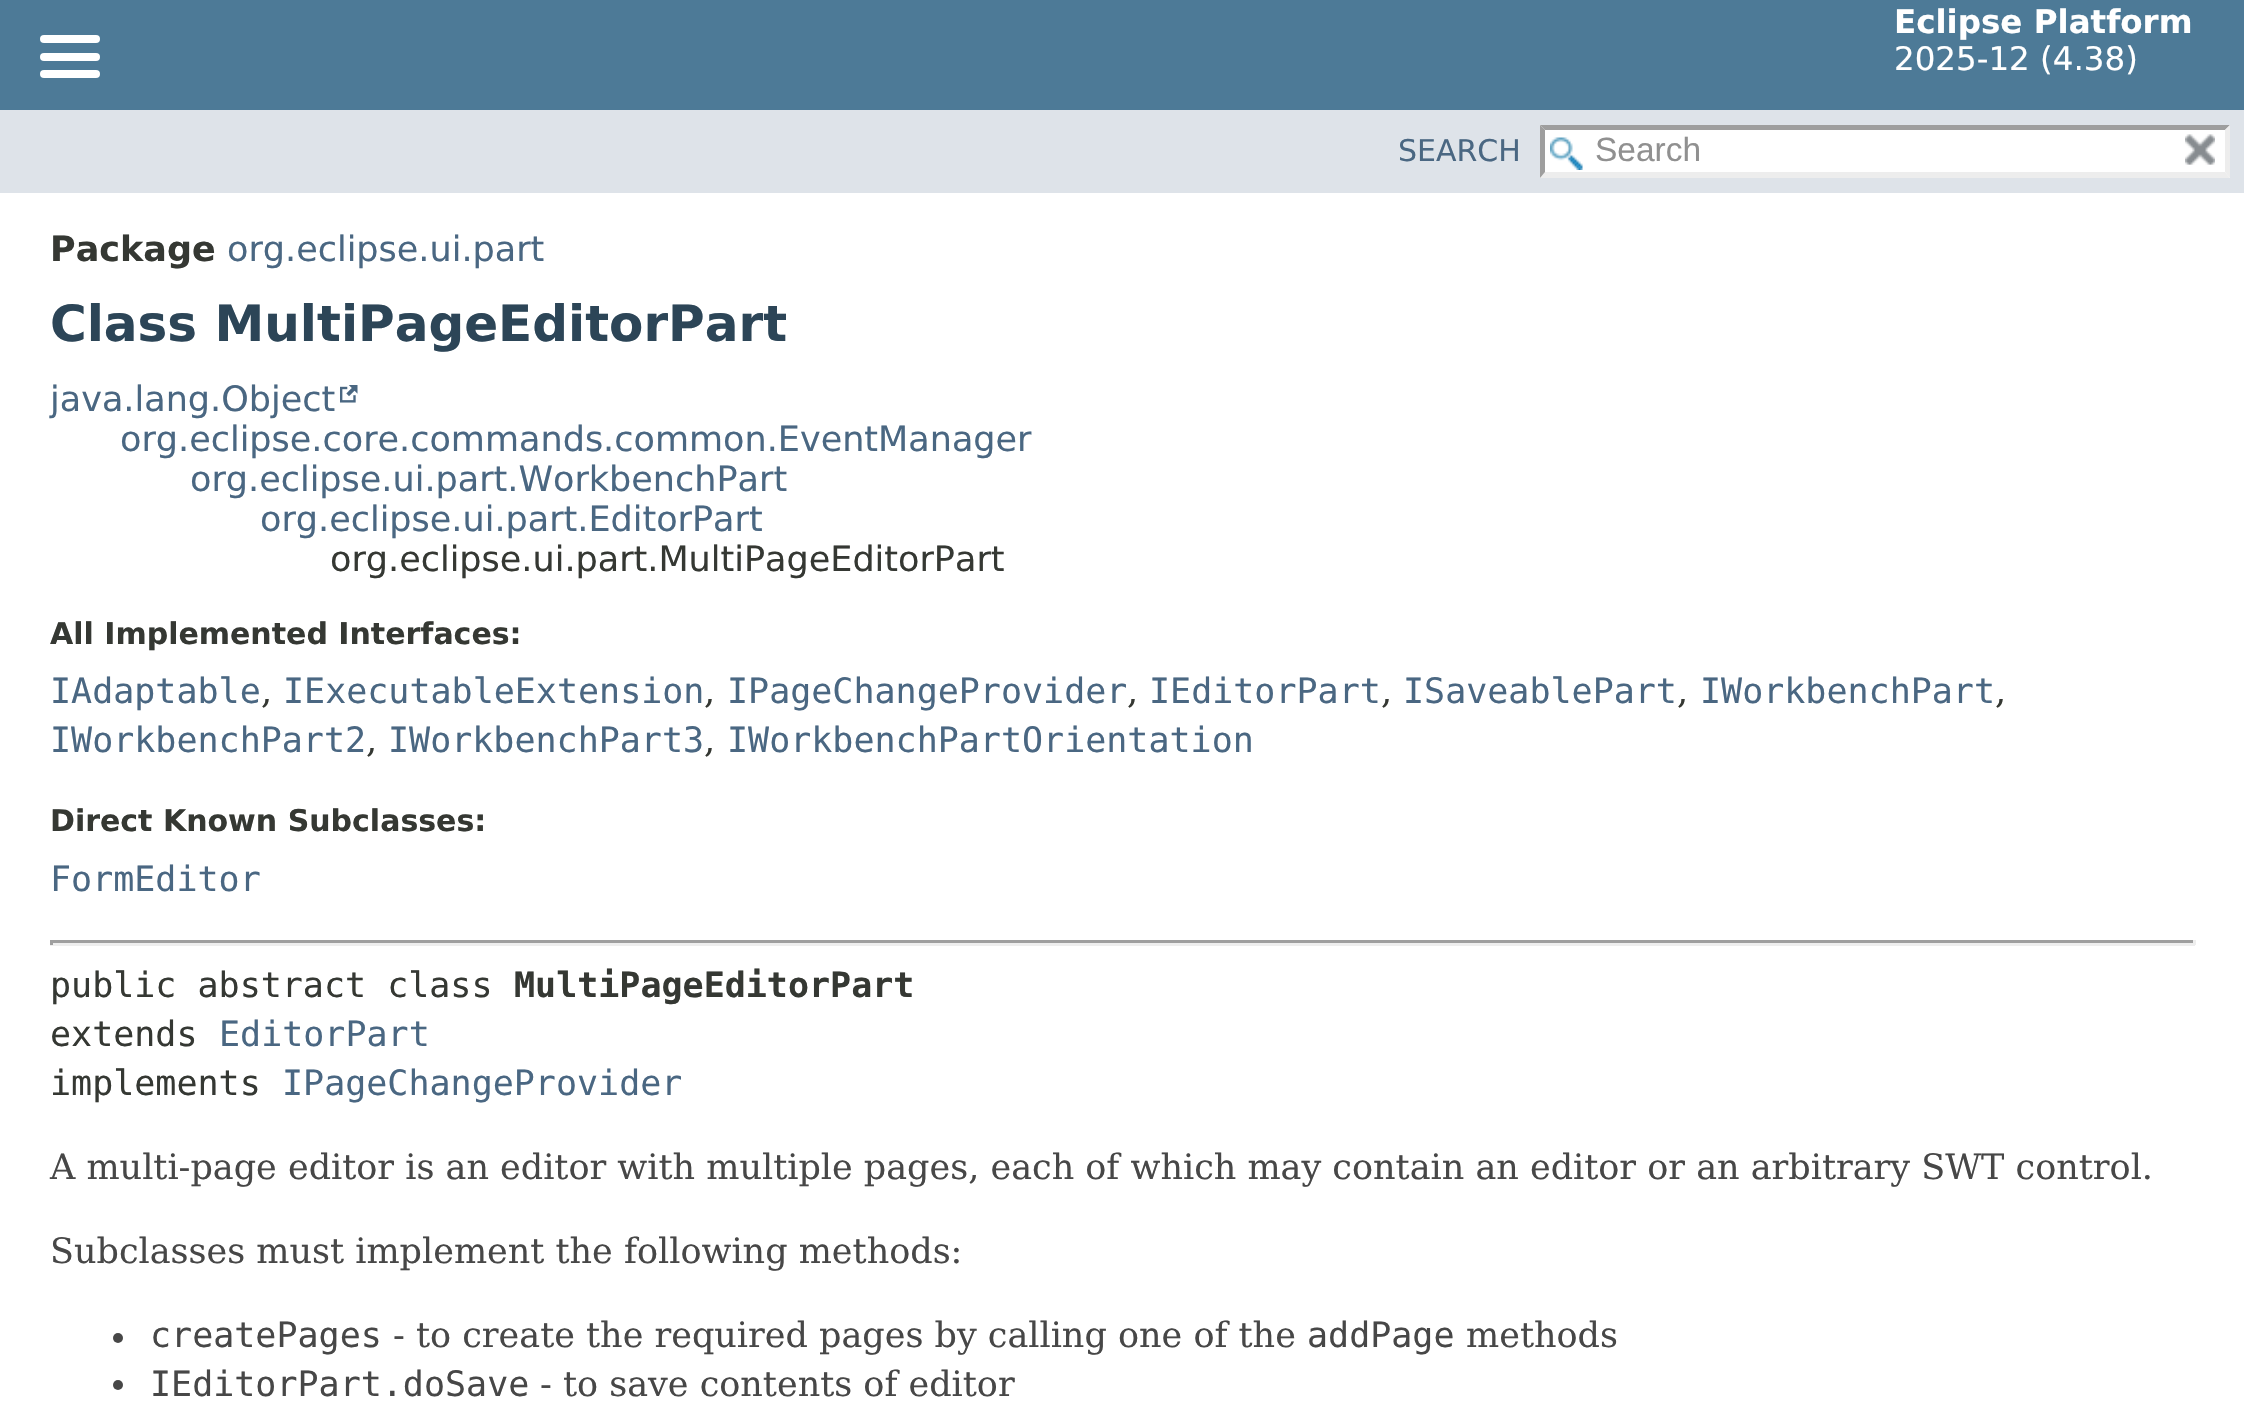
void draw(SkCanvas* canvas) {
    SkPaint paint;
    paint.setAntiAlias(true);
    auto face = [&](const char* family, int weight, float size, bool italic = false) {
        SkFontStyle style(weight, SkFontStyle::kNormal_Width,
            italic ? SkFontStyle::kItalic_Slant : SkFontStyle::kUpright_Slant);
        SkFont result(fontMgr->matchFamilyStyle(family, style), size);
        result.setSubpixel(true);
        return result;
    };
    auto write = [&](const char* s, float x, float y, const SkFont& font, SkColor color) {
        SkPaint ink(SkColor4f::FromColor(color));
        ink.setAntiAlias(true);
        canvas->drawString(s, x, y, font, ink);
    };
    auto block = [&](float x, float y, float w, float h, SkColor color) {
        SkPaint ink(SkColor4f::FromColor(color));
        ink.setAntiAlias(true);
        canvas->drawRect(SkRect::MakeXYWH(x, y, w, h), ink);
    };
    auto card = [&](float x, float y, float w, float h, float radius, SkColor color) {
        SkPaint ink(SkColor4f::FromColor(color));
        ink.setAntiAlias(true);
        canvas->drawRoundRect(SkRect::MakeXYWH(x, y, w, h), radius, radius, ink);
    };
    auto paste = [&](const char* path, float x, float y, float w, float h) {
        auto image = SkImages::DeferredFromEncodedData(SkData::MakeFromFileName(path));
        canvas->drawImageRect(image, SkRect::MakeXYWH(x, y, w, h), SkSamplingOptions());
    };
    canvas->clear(SK_ColorWHITE);
    block(0, 0, 2244, 110, SkColorSetRGB(77, 122, 151));
    card(40, 35, 60, 8, 4, SK_ColorWHITE);
    card(40, 53, 60, 8, 4, SK_ColorWHITE);
    card(40, 70, 60, 8, 4, SK_ColorWHITE);
    auto kFont1 = face("DejaVu Sans", 700, 32.5f);
    write("Eclipse Platform", 1894, 33, kFont1, SK_ColorWHITE);
    auto kFont2 = face("DejaVu Sans", 400, 32.5f);
    write("2025-12 (4.38)", 1894, 70, kFont2, SK_ColorWHITE);
    block(0, 110, 2244, 83, SkColorSetRGB(222, 227, 233));
    auto kFont3 = face("DejaVu Sans", 400, 30);
    write("SEARCH", 1398, 161, kFont3, SkColorSetRGB(74, 103, 130));
    block(1540, 125, 690, 53, SK_ColorWHITE);
    paste("pic1.png", 1550, 137, 33, 33);
    paint.setColor(SkColorSetRGB(158, 158, 158));
    canvas->drawPath(SkPathBuilder().moveTo(1540, 125).lineTo(2230, 125).lineTo(2225, 130).lineTo(1545, 130).close().detach(), paint);
    paint.setColor(SkColorSetRGB(237, 237, 237));
    canvas->drawPath(SkPathBuilder().moveTo(2230, 125).lineTo(2230, 178).lineTo(2225, 172).lineTo(2225, 130).close().detach(), paint);
    canvas->drawPath(SkPathBuilder().moveTo(2230, 178).lineTo(1540, 178).lineTo(1545, 172).lineTo(2225, 172).close().detach(), paint);
    paint.setColor(SkColorSetRGB(158, 158, 158));
    canvas->drawPath(SkPathBuilder().moveTo(1540, 178).lineTo(1540, 125).lineTo(1545, 130).lineTo(1545, 172).close().detach(), paint);
    auto kFont4 = face("Liberation Sans", 400, 33.5f);
    write("Search", 1595, 161, kFont4, SkColorSetRGB(144, 144, 144));
    paste("pic2.png", 2185, 134, 30, 31);
    auto kFont5 = face("DejaVu Sans", 700, 35);
    write("Package", 50, 261, kFont5, SkColorSetRGB(53, 56, 51));
    auto kFont6 = face("DejaVu Sans", 400, 35);
    write("org.eclipse.ui.part", 227, 261, kFont6, SkColorSetRGB(74, 103, 130));
    auto kFont7 = face("DejaVu Sans", 700, 50);
    write("Class MultiPageEditorPart", 50, 341, kFont7, SkColorSetRGB(44, 69, 87));
    write("java.lang.Object", 50, 411, kFont6, SkColorSetRGB(74, 103, 130));
    paste("pic3.png", 340, 385, 18, 18);
    write("org.eclipse.core.commands.common.EventManager", 120, 451, kFont6, SkColorSetRGB(74, 103, 130));
    write("org.eclipse.ui.part.WorkbenchPart", 190, 491, kFont6, SkColorSetRGB(74, 103, 130));
    write("org.eclipse.ui.part.EditorPart", 260, 531, kFont6, SkColorSetRGB(74, 103, 130));
    write("org.eclipse.ui.part.MultiPageEditorPart", 330, 571, kFont6, SkColorSetRGB(53, 56, 51));
    auto kFont8 = face("DejaVu Sans", 700, 30);
    write("All Implemented Interfaces:", 50, 644, kFont8, SkColorSetRGB(53, 56, 51));
    auto kFont9 = face("DejaVu Sans Mono", 400, 35);
    write("IAdaptable", 50, 703, kFont9, SkColorSetRGB(74, 103, 130));
    auto kFont10 = face("DejaVu Serif", 400, 35);
    write(",", 261, 703, kFont10, SkColorSetRGB(53, 56, 51));
    write("IExecutableExtension", 283, 703, kFont9, SkColorSetRGB(74, 103, 130));
    write(",", 704, 703, kFont10, SkColorSetRGB(53, 56, 51));
    write("IPageChangeProvider", 727, 703, kFont9, SkColorSetRGB(74, 103, 130));
    write(",", 1127, 703, kFont10, SkColorSetRGB(53, 56, 51));
    write("IEditorPart", 1149, 703, kFont9, SkColorSetRGB(74, 103, 130));
    write(",", 1381, 703, kFont10, SkColorSetRGB(53, 56, 51));
    write("ISaveablePart", 1403, 703, kFont9, SkColorSetRGB(74, 103, 130));
    write(",", 1677, 703, kFont10, SkColorSetRGB(53, 56, 51));
    write("IWorkbenchPart", 1700, 703, kFont9, SkColorSetRGB(74, 103, 130));
    write(",", 1995, 703, kFont10, SkColorSetRGB(53, 56, 51));
    write("IWorkbenchPart2", 50, 752, kFont9, SkColorSetRGB(74, 103, 130));
    write(",", 366, 752, kFont10, SkColorSetRGB(53, 56, 51));
    write("IWorkbenchPart3", 388, 752, kFont9, SkColorSetRGB(74, 103, 130));
    write(",", 704, 752, kFont10, SkColorSetRGB(53, 56, 51));
    write("IWorkbenchPartOrientation", 727, 752, kFont9, SkColorSetRGB(74, 103, 130));
    write("Direct Known Subclasses:", 50, 831, kFont8, SkColorSetRGB(53, 56, 51));
    write("FormEditor", 50, 891, kFont9, SkColorSetRGB(74, 103, 130));
    block(50, 940, 2145, 3, SkColorSetRGB(159, 159, 159));
    block(2193, 940, 3, 5, SkColorSetRGB(238, 238, 238));
    block(50, 943, 2145, 3, SkColorSetRGB(238, 238, 238));
    block(50, 940, 3, 5, SkColorSetRGB(159, 159, 159));
    write("public abstract class", 50, 997, kFont9, SkColorSetRGB(53, 56, 51));
    auto kFont11 = face("DejaVu Sans Mono", 700, 35);
    write("MultiPageEditorPart", 514, 997, kFont11, SkColorSetRGB(53, 56, 51));
    write("extends", 50, 1046, kFont9, SkColorSetRGB(53, 56, 51));
    write("EditorPart", 219, 1046, kFont9, SkColorSetRGB(74, 103, 130));
    write("implements", 50, 1095, kFont9, SkColorSetRGB(53, 56, 51));
    write("IPageChangeProvider", 282, 1095, kFont9, SkColorSetRGB(74, 103, 130));
    write("A multi-page editor is an editor with multiple pages, each of which may contain an editor or an arbitrary SWT control.", 50, 1179, kFont10, SkColorSetRGB(71, 71, 71));
    write("Subclasses must implement the following methods:", 50, 1263, kFont10, SkColorSetRGB(71, 71, 71));
    paint.setColor(SkColorSetRGB(71, 71, 71));
    canvas->drawCircle(118, 1338, 5, paint);
    write("createPages", 150, 1347, kFont9, SkColorSetRGB(71, 71, 71));
    write("- to create the required pages by calling one of the", 393, 1347, kFont10, SkColorSetRGB(71, 71, 71));
    write("addPage", 1307, 1347, kFont9, SkColorSetRGB(71, 71, 71));
    write("methods", 1466, 1347, kFont10, SkColorSetRGB(71, 71, 71));
    canvas->drawCircle(118, 1385, 5, paint);
    write("IEditorPart.doSave", 150, 1396, kFont9, SkColorSetRGB(71, 71, 71));
    write("- to save contents of editor", 540, 1396, kFont10, SkColorSetRGB(71, 71, 71));
}
